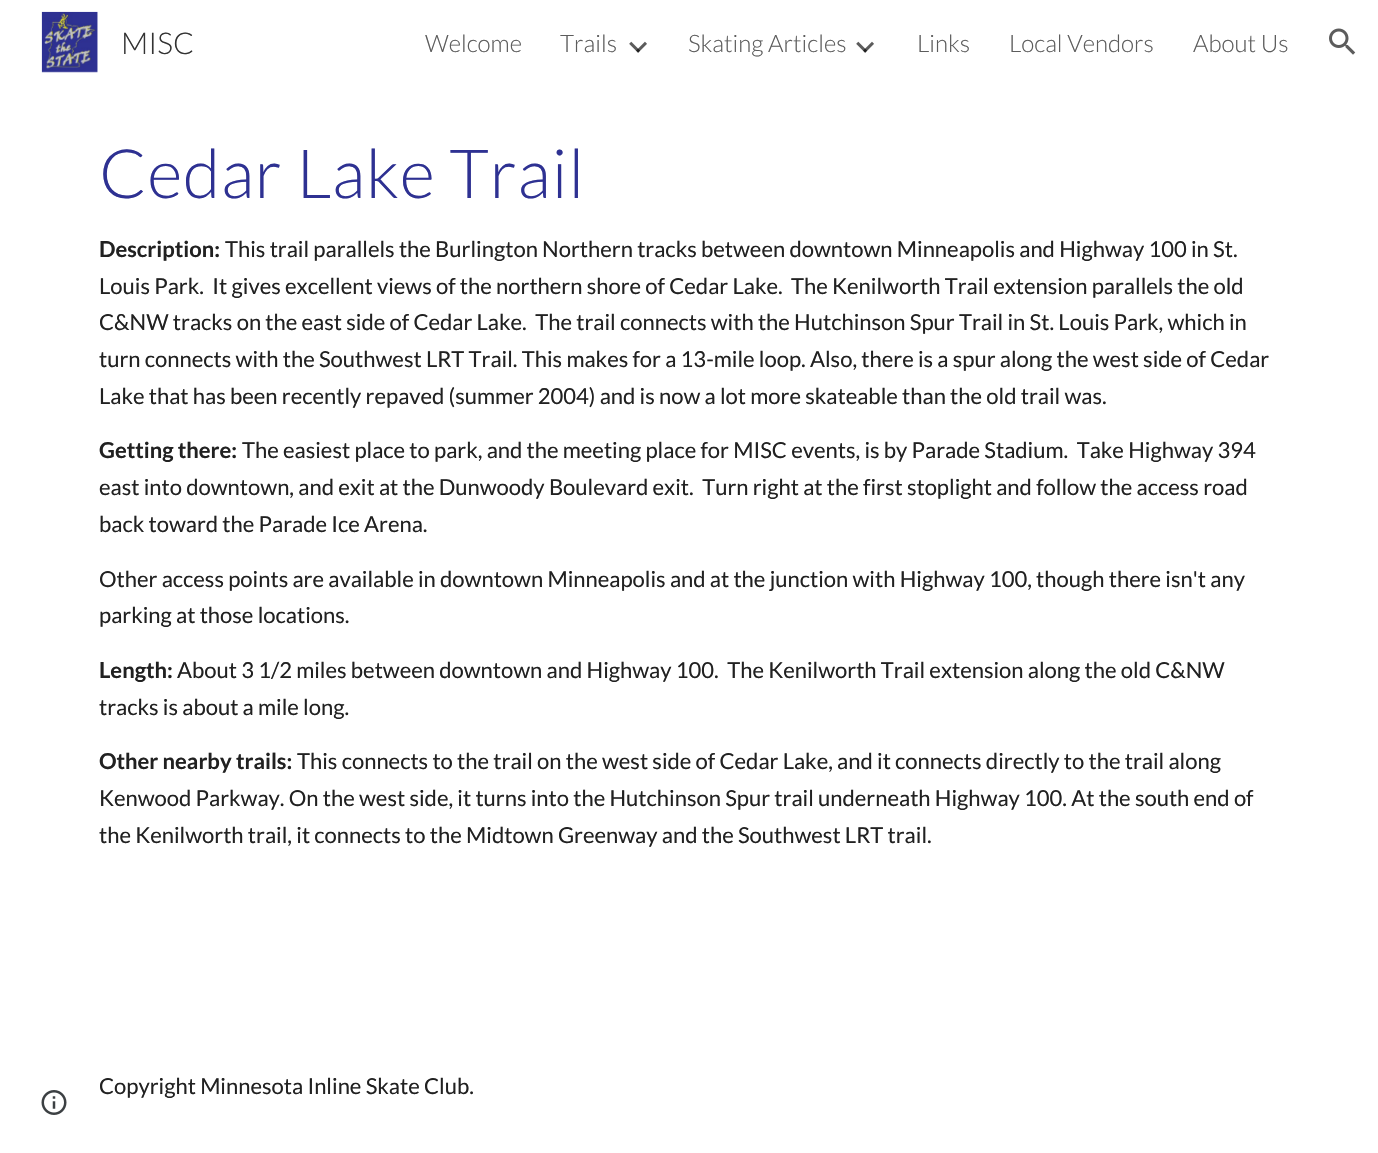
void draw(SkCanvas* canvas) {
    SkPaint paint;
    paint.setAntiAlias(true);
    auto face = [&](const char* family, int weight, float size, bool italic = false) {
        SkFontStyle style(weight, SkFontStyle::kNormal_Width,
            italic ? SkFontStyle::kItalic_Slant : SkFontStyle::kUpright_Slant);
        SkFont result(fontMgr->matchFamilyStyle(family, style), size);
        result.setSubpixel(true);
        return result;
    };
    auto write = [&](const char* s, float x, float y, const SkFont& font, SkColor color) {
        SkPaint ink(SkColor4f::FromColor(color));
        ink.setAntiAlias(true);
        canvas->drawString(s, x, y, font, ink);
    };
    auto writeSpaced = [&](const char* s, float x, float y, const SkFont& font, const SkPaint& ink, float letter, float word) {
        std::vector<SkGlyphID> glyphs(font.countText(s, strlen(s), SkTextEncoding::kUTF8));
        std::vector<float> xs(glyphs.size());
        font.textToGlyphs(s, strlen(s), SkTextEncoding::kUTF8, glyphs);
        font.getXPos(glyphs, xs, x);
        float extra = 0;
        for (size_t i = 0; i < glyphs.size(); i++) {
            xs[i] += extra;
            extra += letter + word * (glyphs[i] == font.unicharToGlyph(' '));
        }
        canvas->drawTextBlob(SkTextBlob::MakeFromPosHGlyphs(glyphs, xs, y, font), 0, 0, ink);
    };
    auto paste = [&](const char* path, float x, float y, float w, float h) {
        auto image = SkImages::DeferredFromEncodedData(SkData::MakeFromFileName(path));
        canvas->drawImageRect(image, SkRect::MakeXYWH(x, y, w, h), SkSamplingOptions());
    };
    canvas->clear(SK_ColorWHITE);
    paste("pic1.png", 41, 11, 57, 62);
    auto kFont1 = face("Lato", 300, 30);
    write("MISC", 121, 54, kFont1, SkColorSetRGB(51, 51, 51));
    auto kFont2 = face("Lato", 300, 24);
    write("Welcome", 425, 52, kFont2, SkColorSetRGB(92, 92, 92));
    write("Trails", 560, 52, kFont2, SkColorSetRGB(92, 92, 92));
    paste("pic2.png", 629, 41, 18, 12);
    write("Skating Articles", 688, 52, kFont2, SkColorSetRGB(92, 92, 92));
    paste("pic3.png", 856, 41, 18, 12);
    write("Links", 917, 52, kFont2, SkColorSetRGB(92, 92, 92));
    write("Local Vendors", 1009, 52, kFont2, SkColorSetRGB(92, 92, 92));
    write("About Us", 1193, 52, kFont2, SkColorSetRGB(92, 92, 92));
    paste("pic4.png", 1329, 28, 27, 27);
    auto kFont3 = face("Lato", 300, 68);
    paint.setColor(SkColorSetRGB(46, 49, 146));
    writeSpaced("Cedar Lake Trail", 99, 198, kFont3, paint, 0.75f, 0);
    auto kFont4 = face("Lato", 700, 22);
    write("Description:", 99, 257, kFont4, SkColorSetRGB(33, 33, 33));
    auto kFont5 = face("Lato", 400, 22);
    write("This trail parallels the Burlington Northern tracks between downtown Minneapolis and Highway 100 in St.", 225, 257, kFont5, SkColorSetRGB(33, 33, 33));
    write("Louis Park.  It gives excellent views of the northern shore of Cedar Lake.  The Kenilworth Trail extension parallels the old", 99, 294, kFont5, SkColorSetRGB(33, 33, 33));
    write("C&NW tracks on the east side of Cedar Lake.  The trail connects with the Hutchinson Spur Trail in St. Louis Park, which in", 99, 330, kFont5, SkColorSetRGB(33, 33, 33));
    write("turn connects with the Southwest LRT Trail. This makes for a 13-mile loop. Also, there is a spur along the west side of Cedar", 99, 367, kFont5, SkColorSetRGB(33, 33, 33));
    write("Lake that has been recently repaved (summer 2004) and is now a lot more skateable than the old trail was.", 99, 404, kFont5, SkColorSetRGB(33, 33, 33));
    write("Getting there:", 99, 458, kFont4, SkColorSetRGB(33, 33, 33));
    write("The easiest place to park, and the meeting place for MISC events, is by Parade Stadium.  Take Highway 394", 242, 458, kFont5, SkColorSetRGB(33, 33, 33));
    write("east into downtown, and exit at the Dunwoody Boulevard exit.  Turn right at the first stoplight and follow the access road", 99, 495, kFont5, SkColorSetRGB(33, 33, 33));
    write("back toward the Parade Ice Arena.", 99, 532, kFont5, SkColorSetRGB(33, 33, 33));
    write("Other access points are available in downtown Minneapolis and at the junction with Highway 100, though there isn't any", 99, 587, kFont5, SkColorSetRGB(33, 33, 33));
    write("parking at those locations.", 99, 623, kFont5, SkColorSetRGB(33, 33, 33));
    write("Length:", 99, 678, kFont4, SkColorSetRGB(33, 33, 33));
    write("About 3 1/2 miles between downtown and Highway 100.  The Kenilworth Trail extension along the old C&NW", 177, 678, kFont5, SkColorSetRGB(33, 33, 33));
    write("tracks is about a mile long.", 99, 715, kFont5, SkColorSetRGB(33, 33, 33));
    write("Other nearby trails:", 99, 769, kFont4, SkColorSetRGB(33, 33, 33));
    write("This connects to the trail on the west side of Cedar Lake, and it connects directly to the trail along", 297, 769, kFont5, SkColorSetRGB(33, 33, 33));
    write("Kenwood Parkway. On the west side, it turns into the Hutchinson Spur trail underneath Highway 100. At the south end of", 99, 806, kFont5, SkColorSetRGB(33, 33, 33));
    write("the Kenilworth trail, it connects to the Midtown Greenway and the Southwest LRT trail.", 99, 843, kFont5, SkColorSetRGB(33, 33, 33));
    write("Copyright Minnesota Inline Skate Club.", 99, 1094, kFont5, SkColorSetRGB(33, 33, 33));
    paste("pic5.png", 41, 1090, 26, 25);
}
